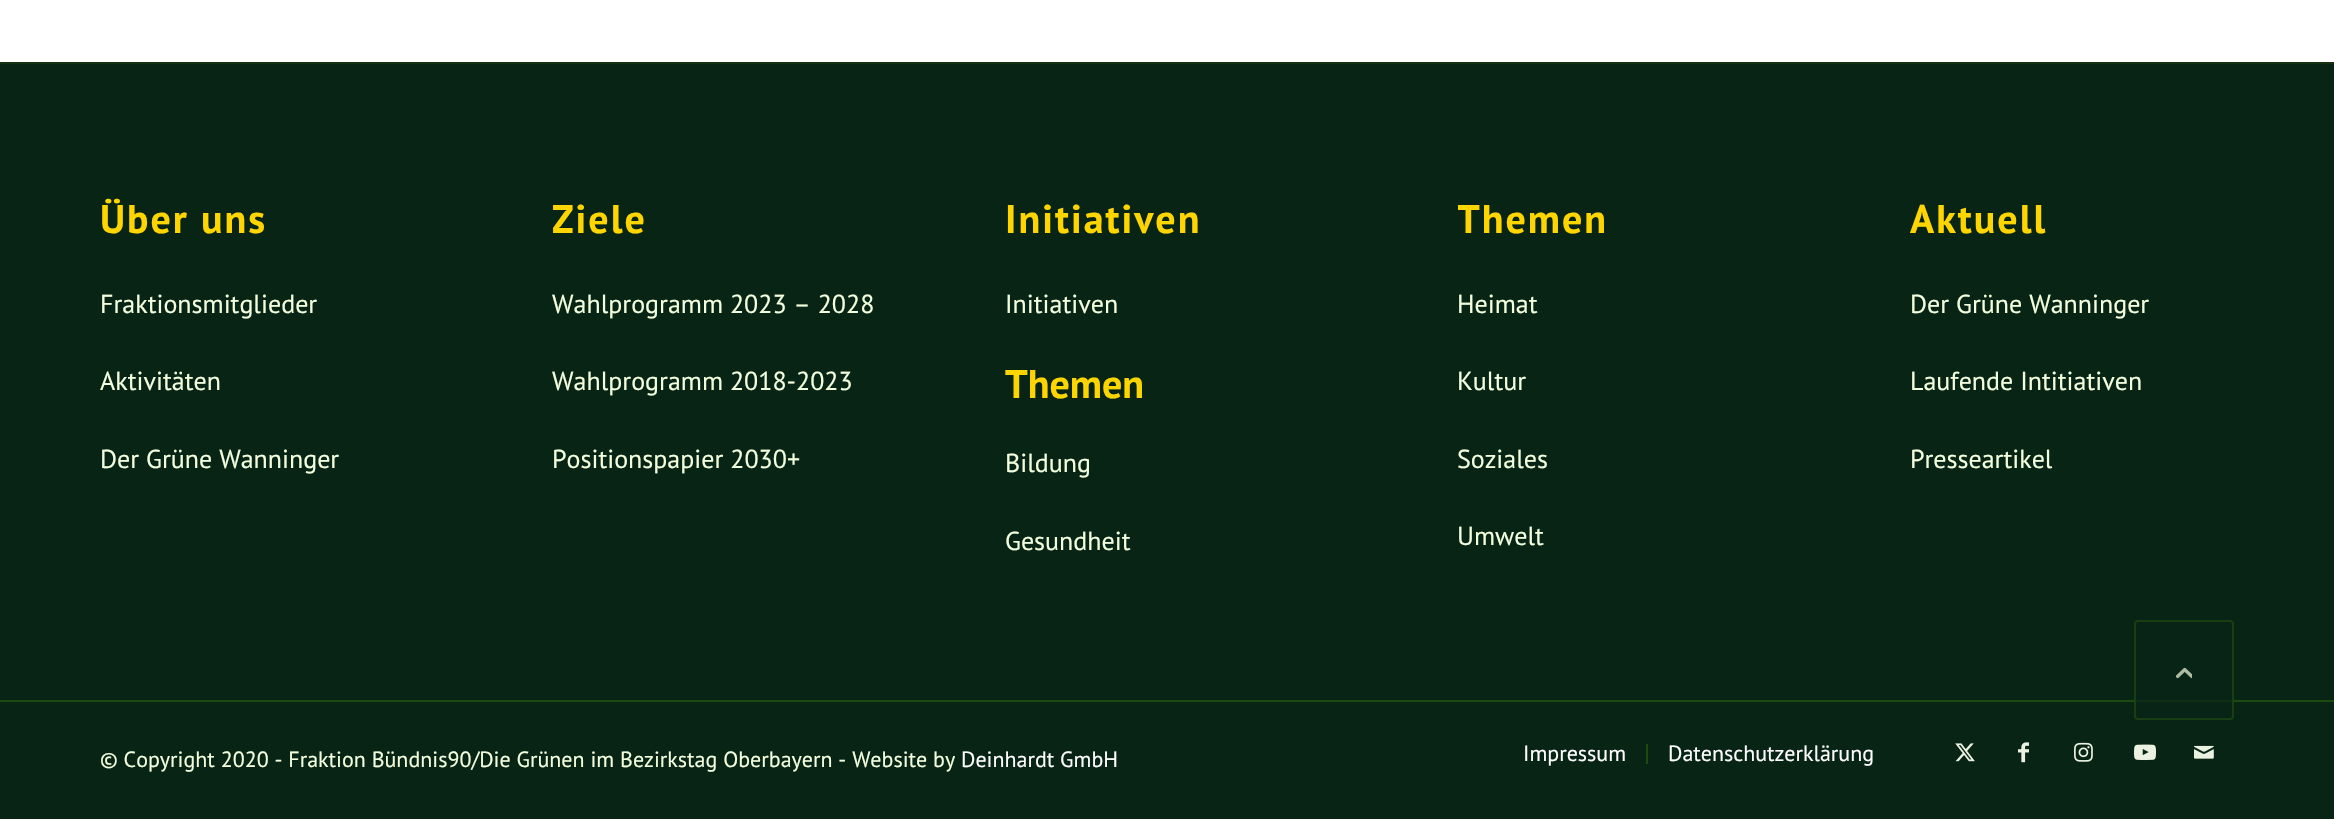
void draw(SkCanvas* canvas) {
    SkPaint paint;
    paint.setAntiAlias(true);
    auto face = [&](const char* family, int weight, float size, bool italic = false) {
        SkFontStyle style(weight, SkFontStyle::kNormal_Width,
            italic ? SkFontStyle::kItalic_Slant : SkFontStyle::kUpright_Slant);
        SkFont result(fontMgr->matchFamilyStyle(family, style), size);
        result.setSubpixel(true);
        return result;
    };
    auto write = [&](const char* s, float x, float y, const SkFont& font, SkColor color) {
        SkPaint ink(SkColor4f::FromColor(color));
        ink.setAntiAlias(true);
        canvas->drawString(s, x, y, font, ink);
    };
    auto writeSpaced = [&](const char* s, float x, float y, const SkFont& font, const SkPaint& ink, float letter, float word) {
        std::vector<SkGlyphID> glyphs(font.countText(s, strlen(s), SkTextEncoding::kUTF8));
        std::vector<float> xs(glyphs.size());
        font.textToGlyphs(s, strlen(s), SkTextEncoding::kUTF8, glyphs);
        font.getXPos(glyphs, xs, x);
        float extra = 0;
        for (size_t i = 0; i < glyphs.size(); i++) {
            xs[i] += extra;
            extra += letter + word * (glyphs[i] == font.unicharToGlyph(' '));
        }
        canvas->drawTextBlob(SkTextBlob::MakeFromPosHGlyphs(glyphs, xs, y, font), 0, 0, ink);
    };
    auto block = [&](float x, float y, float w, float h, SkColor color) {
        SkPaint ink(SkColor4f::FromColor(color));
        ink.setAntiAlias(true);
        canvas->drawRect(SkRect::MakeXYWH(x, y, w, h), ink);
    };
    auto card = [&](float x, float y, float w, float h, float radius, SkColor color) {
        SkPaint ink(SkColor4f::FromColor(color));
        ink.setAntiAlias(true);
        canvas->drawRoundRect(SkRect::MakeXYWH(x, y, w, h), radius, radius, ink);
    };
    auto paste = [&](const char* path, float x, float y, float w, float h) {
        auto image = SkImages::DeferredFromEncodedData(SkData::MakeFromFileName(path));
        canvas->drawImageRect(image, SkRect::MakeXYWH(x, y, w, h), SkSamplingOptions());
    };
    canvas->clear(SK_ColorWHITE);
    block(0, 64, 2334, 636, SkColorSetRGB(7, 36, 21));
    block(0, 62, 2334, 2, SkColorSetRGB(23, 48, 15));
    auto kFont1 = face("PT Sans", 700, 40);
    paint.setColor(SkColorSetRGB(255, 213, 0));
    writeSpaced("Über uns", 100, 233, kFont1, paint, 2, 0);
    auto kFont2 = face("PT Sans", 400, 26);
    write("Fraktionsmitglieder", 100, 313, kFont2, SkColorSetRGB(243, 255, 222));
    write("Aktivitäten", 100, 390, kFont2, SkColorSetRGB(243, 255, 222));
    write("Der Grüne Wanninger", 100, 468, kFont2, SkColorSetRGB(243, 255, 222));
    writeSpaced("Ziele", 552, 233, kFont1, paint, 2, 0);
    write("Wahlprogramm 2023 – 2028", 552, 313, kFont2, SkColorSetRGB(243, 255, 222));
    write("Wahlprogramm 2018-2023", 552, 390, kFont2, SkColorSetRGB(243, 255, 222));
    write("Positionspapier 2030+", 552, 468, kFont2, SkColorSetRGB(243, 255, 222));
    writeSpaced("Initiativen", 1005, 233, kFont1, paint, 2, 0);
    write("Initiativen", 1005, 313, kFont2, SkColorSetRGB(243, 255, 222));
    auto kFont3 = face("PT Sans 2", 700, 40);
    write("Themen", 1005, 398, kFont3, SkColorSetRGB(255, 213, 0));
    write("Bildung", 1005, 472, kFont2, SkColorSetRGB(243, 255, 222));
    write("Gesundheit", 1005, 550, kFont2, SkColorSetRGB(243, 255, 222));
    canvas->save();
    canvas->clipRect(SkRect::MakeXYWH(1458, 154, 324, 422));
    writeSpaced("Themen", 1457, 233, kFont1, paint, 2, 0);
    canvas->restore();
    write("Heimat", 1457, 313, kFont2, SkColorSetRGB(243, 255, 222));
    write("Kultur", 1457, 390, kFont2, SkColorSetRGB(243, 255, 222));
    write("Soziales", 1457, 468, kFont2, SkColorSetRGB(243, 255, 222));
    write("Umwelt", 1457, 545, kFont2, SkColorSetRGB(243, 255, 222));
    writeSpaced("Aktuell", 1910, 233, kFont1, paint, 2, 0);
    write("Der Grüne Wanninger", 1910, 313, kFont2, SkColorSetRGB(243, 255, 222));
    write("Laufende Intitiativen", 1910, 390, kFont2, SkColorSetRGB(243, 255, 222));
    write("Presseartikel", 1910, 468, kFont2, SkColorSetRGB(243, 255, 222));
    block(0, 702, 2334, 117, SkColorSetRGB(7, 36, 21));
    block(0, 700, 2334, 2, SkColorSetRGB(29, 74, 14));
    auto kFont4 = face("PT Sans", 400, 22);
    write("© Copyright 2020 - Fraktion Bündnis90/Die Grünen im Bezirkstag Oberbayern - Website by", 100, 767, kFont4, SkColorSetRGB(243, 255, 222));
    write("Deinhardt GmbH", 961, 767, kFont4, SK_ColorWHITE);
    write("Impressum", 1523, 761, kFont4, SK_ColorWHITE);
    block(1646, 744, 2, 20, SkColorSetRGB(29, 74, 14));
    write("Datenschutzerklärung", 1668, 761, kFont4, SK_ColorWHITE);
    paste("pic1.png", 1955, 743, 20, 19);
    paste("pic2.png", 2018, 742, 11, 21);
    paste("pic3.png", 2074, 742, 19, 20);
    paste("pic4.png", 2134, 744, 22, 17);
    paste("pic5.png", 2194, 745, 20, 14);
    card(2134, 620, 100, 100, 4, SkColorSetARGB(179, 7, 36, 21));
    paint.setStyle(SkPaint::kStroke_Style);
    paint.setStrokeWidth(2);
    paint.setColor(SkColorSetARGB(179, 29, 74, 14));
    canvas->drawRoundRect(SkRect::MakeXYWH(2135, 621, 98, 98), 3, 3, paint);
    paste("pic6.png", 2176, 667, 16, 12);
}
